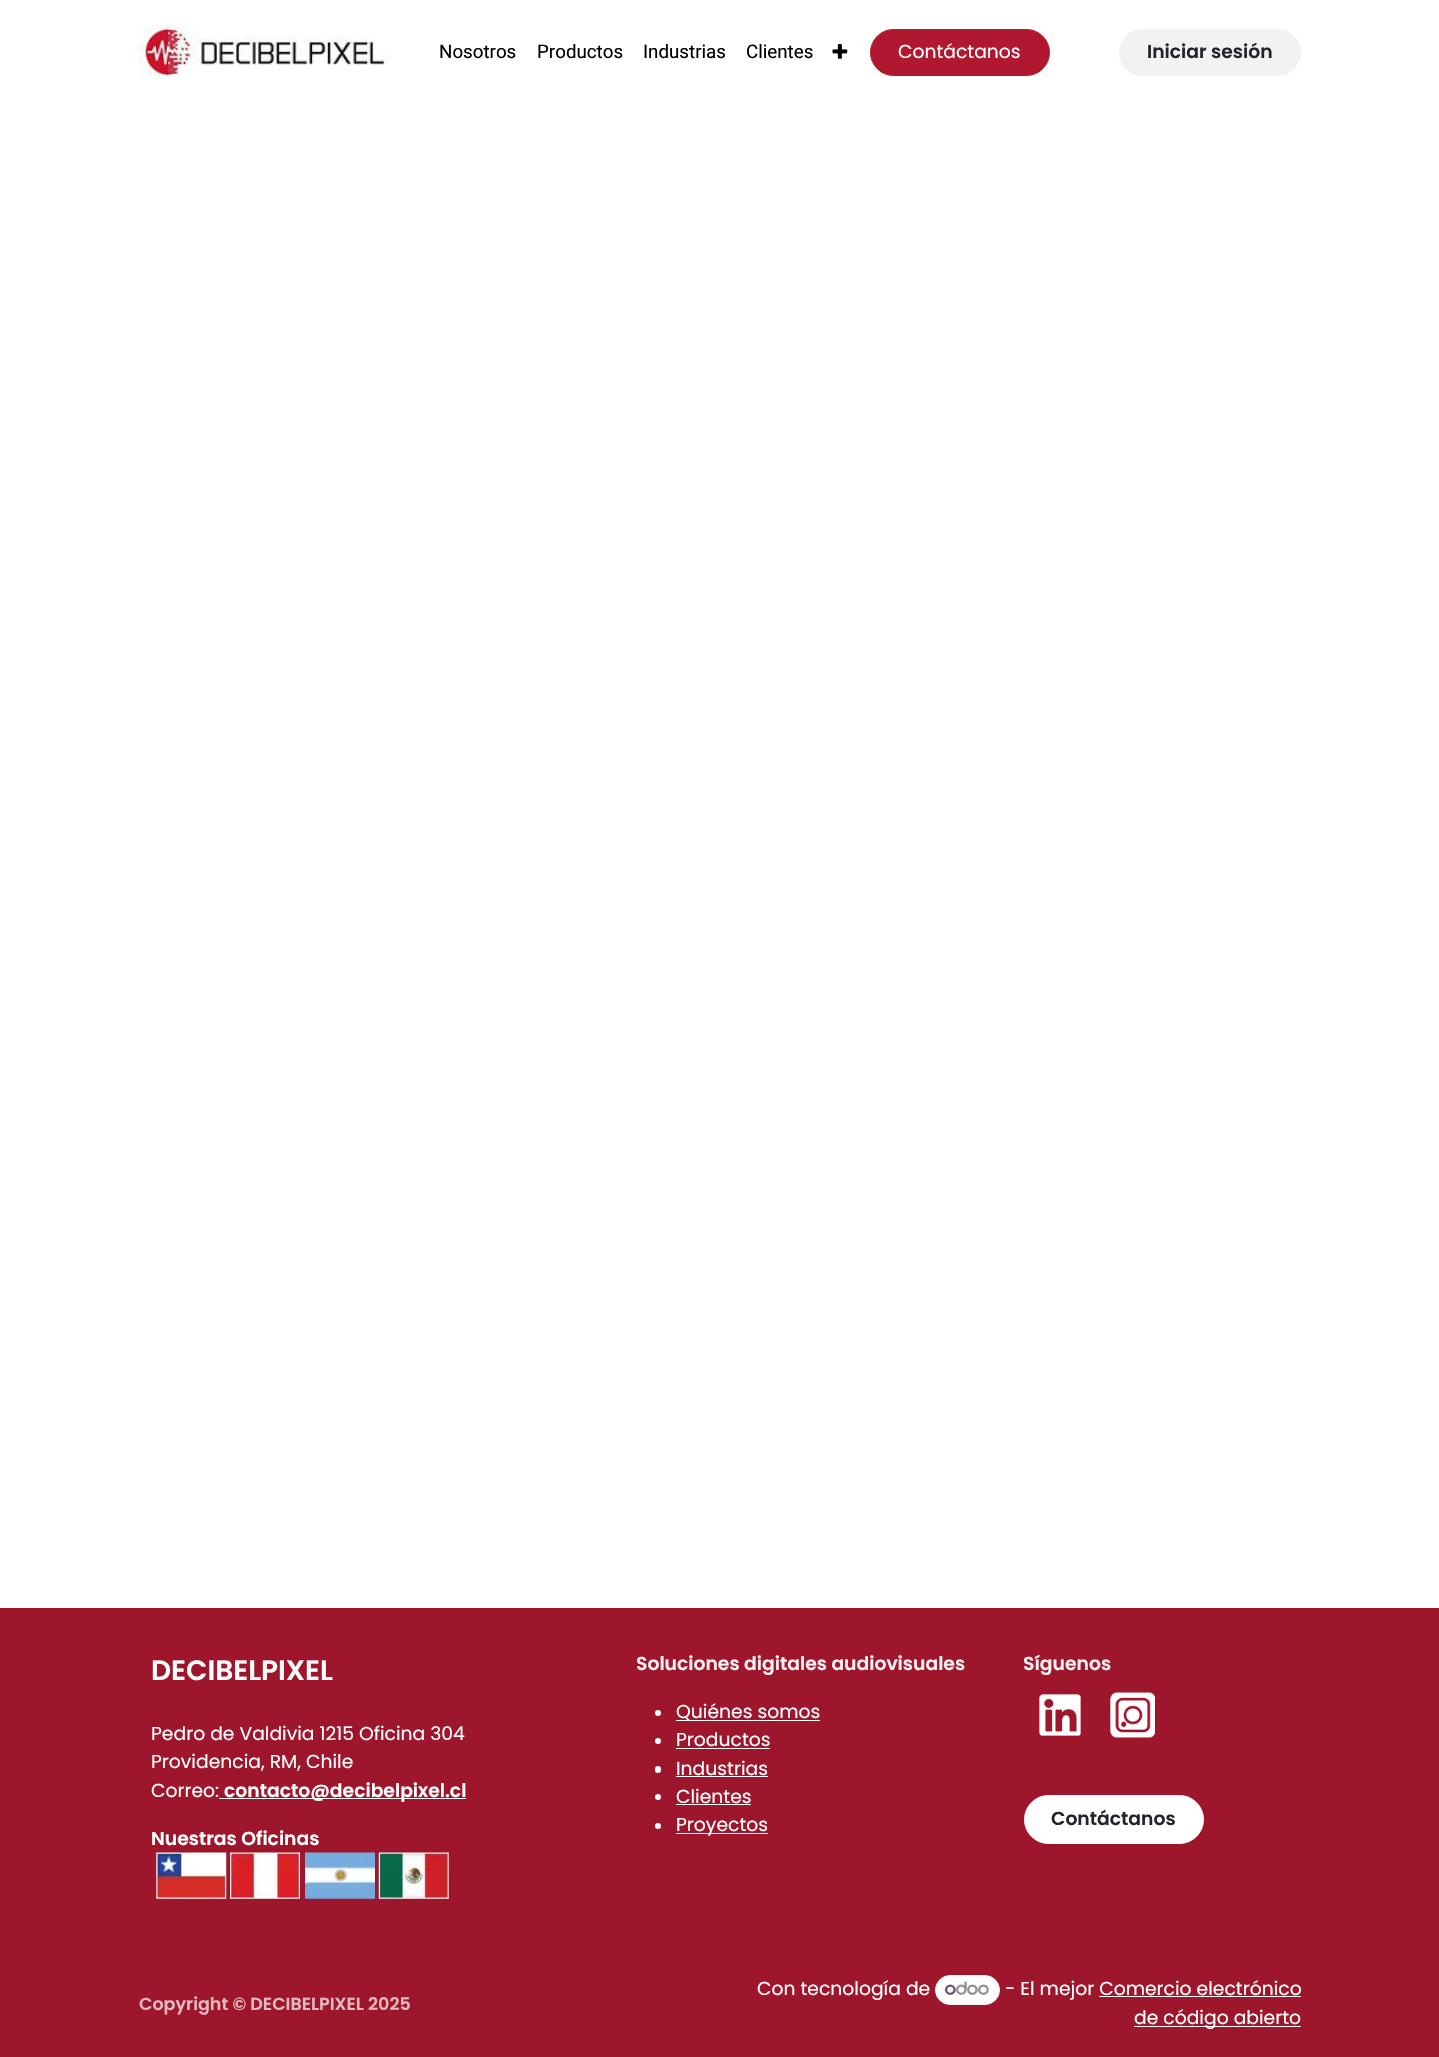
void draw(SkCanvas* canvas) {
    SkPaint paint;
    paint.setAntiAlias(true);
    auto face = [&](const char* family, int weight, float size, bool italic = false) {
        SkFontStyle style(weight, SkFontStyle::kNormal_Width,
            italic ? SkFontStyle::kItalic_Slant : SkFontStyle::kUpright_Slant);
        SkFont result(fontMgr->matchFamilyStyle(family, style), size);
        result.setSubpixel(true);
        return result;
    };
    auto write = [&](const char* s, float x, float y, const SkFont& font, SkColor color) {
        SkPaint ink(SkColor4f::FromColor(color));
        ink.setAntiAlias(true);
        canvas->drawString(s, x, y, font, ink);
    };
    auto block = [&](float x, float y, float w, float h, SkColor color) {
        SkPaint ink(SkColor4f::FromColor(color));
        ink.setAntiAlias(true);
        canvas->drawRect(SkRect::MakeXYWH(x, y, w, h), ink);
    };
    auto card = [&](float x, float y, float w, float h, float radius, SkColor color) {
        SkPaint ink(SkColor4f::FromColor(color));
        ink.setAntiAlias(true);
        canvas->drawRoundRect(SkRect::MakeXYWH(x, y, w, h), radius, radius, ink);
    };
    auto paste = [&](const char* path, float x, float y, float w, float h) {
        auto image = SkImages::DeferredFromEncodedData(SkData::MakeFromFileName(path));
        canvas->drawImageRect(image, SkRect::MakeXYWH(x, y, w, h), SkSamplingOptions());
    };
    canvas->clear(SK_ColorWHITE);
    paste("pic1.png", 138, 25, 253, 55);
    auto kFont1 = face("Roboto", 400, 18.75f);
    write("Nosotros", 439, 58, kFont1, SK_ColorBLACK);
    write("Productos", 537, 58, kFont1, SK_ColorBLACK);
    write("Industrias", 643, 58, kFont1, SK_ColorBLACK);
    write("Clientes", 746, 58, kFont1, SK_ColorBLACK);
    paste("pic2.png", 832, 44, 16, 15);
    paint.setColor(SkColorSetRGB(176, 24, 48));
    canvas->drawRoundRect(SkRect::MakeXYWH(870.5f, 29.5f, 179, 46), 23, 23, paint);
    paint.setStyle(SkPaint::kStroke_Style);
    paint.setStrokeWidth(1);
    canvas->drawRoundRect(SkRect::MakeXYWH(870.5f, 29.5f, 179, 46), 23, 23, paint);
    auto kFont2 = face("Poppins", 400, 18.75f);
    write("Contáctanos", 898, 58, kFont2, SK_ColorWHITE);
    card(1119, 29, 182, 47, 23.5f, SkColorSetRGB(242, 242, 242));
    auto kFont3 = face("Poppins", 600, 18.75f);
    write("Iniciar sesión", 1147, 58, kFont3, SkColorSetRGB(33, 37, 41));
    block(0, 1608, 1439, 449, SkColorSetRGB(158, 22, 43));
    auto kFont4 = face("Poppins", 600, 28);
    write("DECIBELPIXEL", 151, 1680, kFont4, SK_ColorWHITE);
    write("Pedro de Valdivia 1215 Oficina 304", 151, 1740, kFont2, SK_ColorWHITE);
    write("Providencia, RM, Chile", 151, 1768, kFont2, SK_ColorWHITE);
    write("Correo:", 151, 1797, kFont2, SK_ColorWHITE);
    block(219, 1798, 247, 1, SK_ColorWHITE);
    write("contacto@decibelpixel.cl", 224, 1797, kFont3, SK_ColorWHITE);
    write("Nuestras Oficinas", 151, 1845, kFont3, SK_ColorWHITE);
    paste("pic3.png", 156, 1852, 71, 47);
    paste("pic4.png", 230, 1852, 70, 47);
    paste("pic5.png", 305, 1852, 70, 47);
    paste("pic6.png", 378, 1852, 71, 47);
    write("Soluciones digitales audiovisuales", 636, 1670, kFont3, SkColorSetRGB(245, 240, 242));
    paint.setStyle(SkPaint::kFill_Style);
    paint.setColor(SK_ColorWHITE);
    canvas->drawCircle(658, 1713, 3, paint);
    block(676, 1720, 144, 1, SK_ColorWHITE);
    write("Quiénes somos", 676, 1718, kFont2, SK_ColorWHITE);
    canvas->drawCircle(658, 1741, 3, paint);
    write("Productos", 676, 1746, kFont2, SK_ColorWHITE);
    block(676, 1748, 94, 1, SK_ColorWHITE);
    card(655, 1766, 6, 7, 3, SK_ColorWHITE);
    write("Industrias", 676, 1775, kFont2, SK_ColorWHITE);
    block(676, 1776, 92, 1, SK_ColorWHITE);
    canvas->drawCircle(658, 1797, 3, paint);
    write("Clientes", 676, 1803, kFont2, SK_ColorWHITE);
    block(676, 1804, 75, 1, SK_ColorWHITE);
    canvas->drawCircle(658, 1826, 3, paint);
    block(676, 1833, 92, 1, SK_ColorWHITE);
    write("Proyectos", 676, 1831, kFont2, SK_ColorWHITE);
    write("Síguenos", 1023, 1670, kFont3, SkColorSetRGB(245, 240, 242));
    paste("pic7.png", 1039, 1694, 42, 42);
    paste("pic8.png", 1110, 1692, 45, 46);
    canvas->drawRoundRect(SkRect::MakeXYWH(1024.5f, 1795.5f, 179, 48), 24, 24, paint);
    paint.setStyle(SkPaint::kStroke_Style);
    canvas->drawRoundRect(SkRect::MakeXYWH(1024.5f, 1795.5f, 179, 48), 24, 24, paint);
    write("Contáctanos", 1051, 1825, kFont3, SkColorSetRGB(33, 37, 41));
    auto kFont5 = face("Poppins", 600, 17.5f);
    write("Copyright © DECIBELPIXEL 2025", 139, 2010, kFont5, SkColorSetRGB(226, 185, 191));
    write("Con tecnología de", 757, 1995, kFont2, SK_ColorWHITE);
    paint.setStyle(SkPaint::kFill_Style);
    paint.setColor(SkColorSetRGB(254, 254, 254));
    canvas->drawRoundRect(SkRect::MakeXYWH(935.5f, 1975.5f, 64, 29), 14.5f, 14.5f, paint);
    paint.setStyle(SkPaint::kStroke_Style);
    paint.setColor(SkColorSetRGB(245, 240, 242));
    canvas->drawRoundRect(SkRect::MakeXYWH(935.5f, 1975.5f, 64, 29), 14.5f, 14.5f, paint);
    paste("pic9.png", 945, 1981, 44, 14);
    write("- El mejor Comercio electrónico", 1005, 1995, kFont2, SK_ColorWHITE);
    block(1134, 2026, 167, 1, SK_ColorWHITE);
    write("de código abierto", 1134, 2024, kFont2, SK_ColorWHITE);
    block(1099, 1996, 202, 1, SK_ColorWHITE);
}
